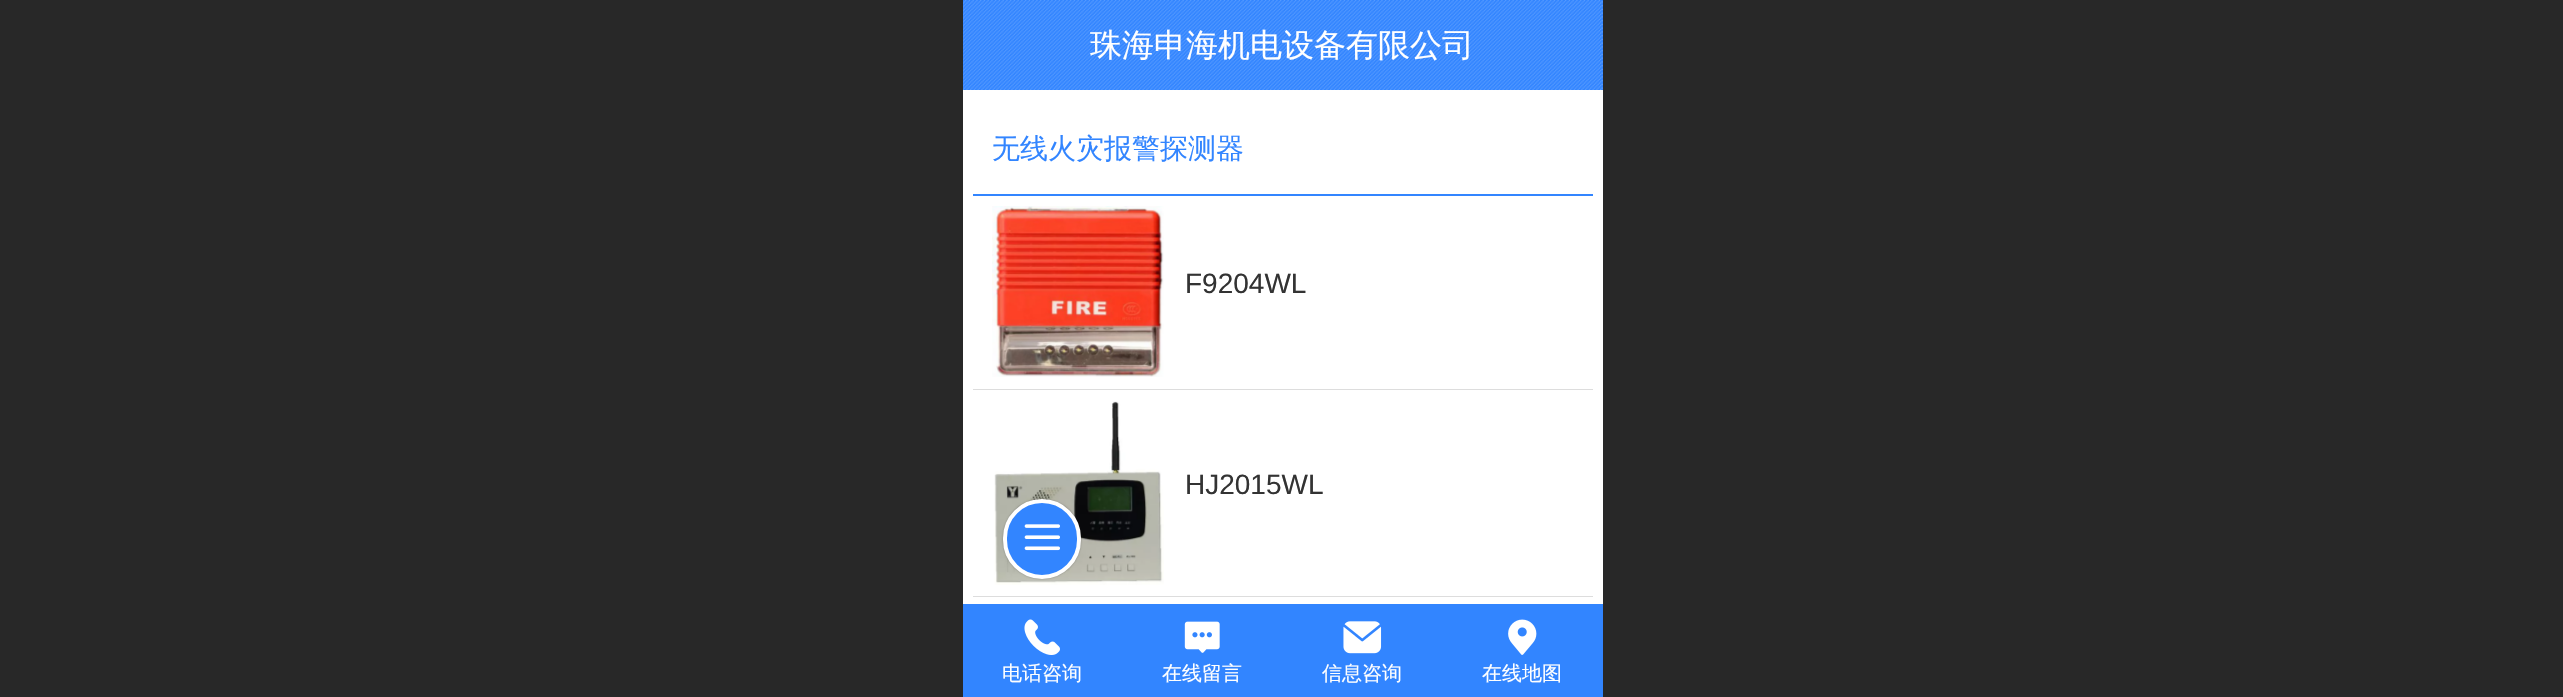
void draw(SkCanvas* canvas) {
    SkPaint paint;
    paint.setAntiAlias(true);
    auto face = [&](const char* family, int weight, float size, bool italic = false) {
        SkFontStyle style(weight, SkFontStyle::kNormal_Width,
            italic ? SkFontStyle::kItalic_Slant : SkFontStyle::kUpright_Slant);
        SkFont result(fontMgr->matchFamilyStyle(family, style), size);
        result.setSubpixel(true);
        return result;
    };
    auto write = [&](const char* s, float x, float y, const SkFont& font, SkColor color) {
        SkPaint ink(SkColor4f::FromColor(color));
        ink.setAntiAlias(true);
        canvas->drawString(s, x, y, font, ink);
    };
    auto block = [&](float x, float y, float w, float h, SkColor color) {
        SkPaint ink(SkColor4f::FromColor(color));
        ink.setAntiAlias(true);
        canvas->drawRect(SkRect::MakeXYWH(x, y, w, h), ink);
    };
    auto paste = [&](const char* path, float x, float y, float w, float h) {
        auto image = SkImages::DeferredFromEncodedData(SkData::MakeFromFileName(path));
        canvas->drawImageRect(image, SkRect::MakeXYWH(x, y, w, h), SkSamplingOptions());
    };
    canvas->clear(SK_ColorWHITE);
    block(0, 0, 963, 697, SkColorSetRGB(40, 40, 40));
    block(963, 0, 640, 90, SkColorSetRGB(50, 133, 255));
    paste("pic1.png", 963, 0, 640, 90);
    auto kFont1 = face("WenQuanYi Zen Hei", 500, 32);
    write("珠海申海机电设备有限公司", 1090, 56, kFont1, SK_ColorWHITE);
    paste("pic4.png", 994, 401, 170, 184);
    paint.setColor(SkColorSetARGB(77, 0, 0, 0));
    paint.setMaskFilter(SkMaskFilter::MakeBlur(kNormal_SkBlurStyle, 1));
    canvas->drawRoundRect(SkRect::MakeXYWH(1003, 499, 78, 80), 39, 39, paint);
    paint.setMaskFilter(nullptr);
    paint.setColor(SkColorSetRGB(50, 133, 255));
    canvas->drawRoundRect(SkRect::MakeXYWH(1005, 501, 74, 76), 37, 37, paint);
    paint.setStyle(SkPaint::kStroke_Style);
    paint.setStrokeWidth(4);
    paint.setColor(SK_ColorWHITE);
    canvas->drawRoundRect(SkRect::MakeXYWH(1005, 501, 74, 76), 37, 37, paint);
    paste("pic2.png", 1024, 524, 36, 27);
    block(973, 194, 620, 2, SkColorSetRGB(50, 133, 255));
    auto kFont2 = face("WenQuanYi Zen Hei", 500, 28);
    write("无线火灾报警探测器", 992, 158, kFont2, SkColorSetRGB(50, 133, 255));
    paste("pic3.png", 992, 206, 172, 171);
    auto kFont3 = face("Liberation Sans", 400, 28);
    write("F9204WL", 1185, 293, kFont3, SkColorSetRGB(51, 51, 51));
    block(973, 389, 620, 1, SkColorSetRGB(221, 221, 221));
    write("HJ2015WL", 1185, 494, kFont3, SkColorSetRGB(51, 51, 51));
    block(973, 596, 620, 1, SkColorSetRGB(221, 221, 221));
    block(963, 604, 640, 93, SkColorSetRGB(50, 133, 255));
    paste("pic5.png", 1024, 619, 36, 36);
    auto kFont4 = face("WenQuanYi Zen Hei", 500, 20);
    write("电话咨询", 1002, 680, kFont4, SK_ColorWHITE);
    paste("pic6.png", 1184, 621, 36, 32);
    write("在线留言", 1162, 680, kFont4, SK_ColorWHITE);
    paste("pic7.png", 1343, 621, 39, 33);
    write("信息咨询", 1322, 680, kFont4, SK_ColorWHITE);
    paste("pic8.png", 1508, 619, 29, 36);
    write("在线地图", 1482, 680, kFont4, SK_ColorWHITE);
    block(1603, 0, 960, 697, SkColorSetRGB(40, 40, 40));
}
